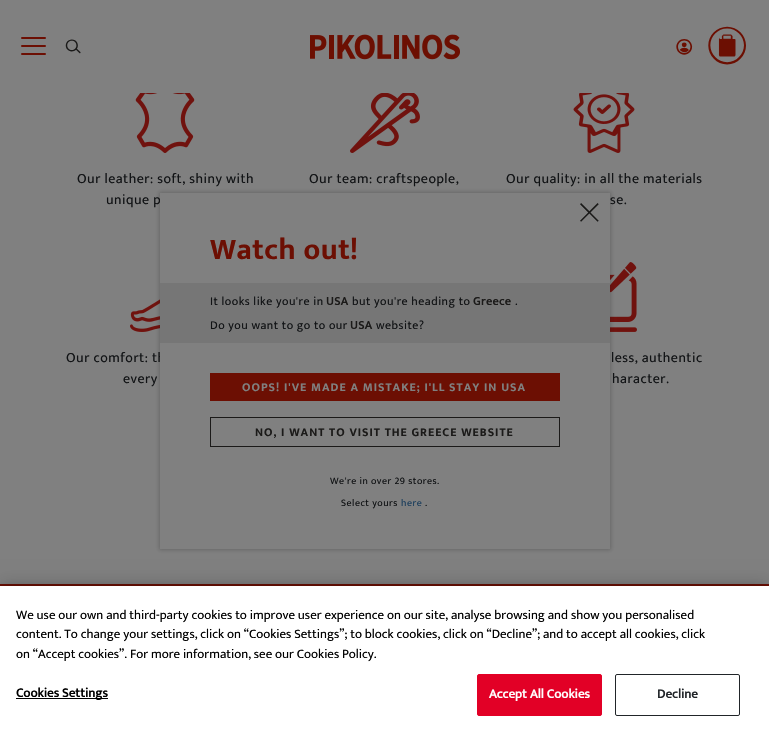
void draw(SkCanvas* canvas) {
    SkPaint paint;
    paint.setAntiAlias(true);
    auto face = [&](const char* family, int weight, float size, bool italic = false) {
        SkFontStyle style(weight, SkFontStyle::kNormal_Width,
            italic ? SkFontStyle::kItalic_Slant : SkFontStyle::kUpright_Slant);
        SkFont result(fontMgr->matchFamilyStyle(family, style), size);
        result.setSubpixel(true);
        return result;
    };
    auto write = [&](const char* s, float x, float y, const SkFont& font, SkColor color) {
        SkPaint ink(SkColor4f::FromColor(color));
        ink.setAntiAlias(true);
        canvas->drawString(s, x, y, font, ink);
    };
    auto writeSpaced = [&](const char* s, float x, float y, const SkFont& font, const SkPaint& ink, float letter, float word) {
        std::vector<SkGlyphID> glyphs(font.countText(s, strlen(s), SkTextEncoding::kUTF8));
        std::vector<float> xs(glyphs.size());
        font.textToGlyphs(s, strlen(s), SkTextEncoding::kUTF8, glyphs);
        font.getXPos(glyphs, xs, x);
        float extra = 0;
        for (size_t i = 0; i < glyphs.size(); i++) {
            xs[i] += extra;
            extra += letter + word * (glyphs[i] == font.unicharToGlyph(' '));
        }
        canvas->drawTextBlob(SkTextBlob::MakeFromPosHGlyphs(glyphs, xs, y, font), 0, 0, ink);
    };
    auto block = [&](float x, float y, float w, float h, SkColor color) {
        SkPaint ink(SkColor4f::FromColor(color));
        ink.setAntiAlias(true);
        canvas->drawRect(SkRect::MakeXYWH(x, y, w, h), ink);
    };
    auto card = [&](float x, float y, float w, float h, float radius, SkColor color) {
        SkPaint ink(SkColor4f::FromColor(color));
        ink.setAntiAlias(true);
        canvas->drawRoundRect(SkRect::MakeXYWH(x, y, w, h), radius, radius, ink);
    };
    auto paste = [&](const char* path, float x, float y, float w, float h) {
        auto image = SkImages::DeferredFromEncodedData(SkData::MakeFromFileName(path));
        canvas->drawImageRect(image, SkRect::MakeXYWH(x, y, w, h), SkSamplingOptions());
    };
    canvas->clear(SkColorSetRGB(128, 128, 128));
    card(21, 45, 25, 2, 1, SkColorSetRGB(108, 15, 3));
    card(21, 37, 25, 2, 1, SkColorSetRGB(108, 15, 3));
    card(21, 53, 25, 2, 1, SkColorSetRGB(108, 15, 3));
    paste("pic1.png", 65, 39, 16, 15);
    paste("pic2.png", 310, 34, 150, 26);
    paste("pic3.png", 676, 39, 17, 16);
    paste("pic4.png", 708, 26, 38, 39);
    paste("pic5.png", 135, 93, 60, 60);
    auto kFont1 = face("Mukta", 400, 14);
    paint.setColor(SkColorSetRGB(17, 19, 21));
    writeSpaced("Our leather: soft, shiny with", 77, 183, kFont1, paint, 0.5f, 0);
    writeSpaced("unique p", 106, 204, kFont1, paint, 0.5f, 0);
    paste("pic6.png", 350, 93, 70, 60);
    writeSpaced("Our team: craftspeople,", 309, 183, kFont1, paint, 0.5f, 0);
    paste("pic7.png", 573, 93, 62, 60);
    writeSpaced("Our quality: in all the materials", 506, 183, kFont1, paint, 0.5f, 0);
    writeSpaced("se.", 610, 204, kFont1, paint, 0.5f, 0);
    paste("pic8.png", 130, 299, 30, 33);
    writeSpaced("Our comfort: th", 66, 362, kFont1, paint, 0.5f, 0);
    writeSpaced("every", 123, 383, kFont1, paint, 0.5f, 0);
    paste("pic9.png", 610, 262, 27, 70);
    writeSpaced("less, authentic", 611, 362, kFont1, paint, 0.5f, 0);
    writeSpaced("haracter.", 612, 383, kFont1, paint, 0.5f, 0);
    block(0, 584, 769, 2, SkColorSetRGB(108, 15, 3));
    paint.setColor(SkColorSetARGB(51, 0, 0, 0));
    paint.setMaskFilter(SkMaskFilter::MakeBlur(kNormal_SkBlurStyle, 5));
    canvas->drawRect(SkRect::MakeXYWH(0, 588, 769, 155), paint);
    paint.setMaskFilter(nullptr);
    paint.setColor(SkColorSetARGB(64, 23, 23, 23));
    paint.setMaskFilter(SkMaskFilter::MakeBlur(kNormal_SkBlurStyle, 2));
    canvas->drawRect(SkRect::MakeXYWH(159, 192, 452, 358), paint);
    paint.setMaskFilter(nullptr);
    block(160, 193, 450, 356, SkColorSetRGB(128, 128, 128));
    paste("pic10.png", 580, 203, 19, 19);
    auto kFont2 = face("Mukta", 700, 30);
    paint.setColor(SkColorSetRGB(108, 15, 3));
    writeSpaced("Watch out!", 210, 259, kFont2, paint, 0.5f, 0);
    block(160, 283, 450, 60, SkColorSetRGB(118, 118, 118));
    auto kFont3 = face("Mukta", 400, 12);
    paint.setColor(SkColorSetRGB(17, 19, 21));
    writeSpaced("It looks like you're in", 210, 305, kFont3, paint, 0.5f, 0);
    auto kFont4 = face("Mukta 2", 700, 12);
    paint.setColor(SkColorSetRGB(27, 26, 25));
    writeSpaced("USA", 326, 305, kFont4, paint, 0.5f, 0);
    paint.setColor(SkColorSetRGB(17, 19, 21));
    writeSpaced("but you're heading to", 352, 305, kFont3, paint, 0.5f, 0);
    paint.setColor(SkColorSetRGB(27, 26, 25));
    writeSpaced("Greece", 473, 305, kFont4, paint, 0.5f, 0);
    paint.setColor(SkColorSetRGB(17, 19, 21));
    writeSpaced(".", 515, 305, kFont3, paint, 0.5f, 0);
    writeSpaced("Do you want to go to our", 210, 329, kFont3, paint, 0.5f, 0);
    paint.setColor(SkColorSetRGB(27, 26, 25));
    writeSpaced("USA", 350, 329, kFont4, paint, 0.5f, 0);
    paint.setColor(SkColorSetRGB(17, 19, 21));
    writeSpaced("website?", 376, 329, kFont3, paint, 0.5f, 0);
    block(210, 373, 350, 28, SkColorSetRGB(108, 15, 3));
    auto kFont5 = face("Mukta", 700, 12);
    paint.setColor(SkColorSetRGB(128, 128, 128));
    writeSpaced("OOPS! I'VE MADE A MISTAKE; I'LL STAY IN USA", 242, 391, kFont5, paint, 1, 0);
    paint.setStyle(SkPaint::kStroke_Style);
    paint.setStrokeWidth(1);
    paint.setColor(SkColorSetRGB(27, 26, 25));
    canvas->drawRect(SkRect::MakeXYWH(210.5f, 417.5f, 349, 29), paint);
    paint.setStyle(SkPaint::kFill_Style);
    writeSpaced("NO, I WANT TO VISIT THE GREECE WEBSITE", 255, 436, kFont5, paint, 1, 0);
    auto kFont6 = face("Mukta", 400, 10);
    paint.setColor(SkColorSetRGB(17, 19, 21));
    writeSpaced("We're in over 29 stores.", 330, 484, kFont6, paint, 0.5f, 0);
    writeSpaced("Select yours", 341, 506, kFont6, paint, 0.5f, 0);
    paint.setColor(SkColorSetRGB(26, 61, 92));
    writeSpaced("here", 401, 506, kFont6, paint, 0.5f, 0);
    paint.setColor(SkColorSetRGB(17, 19, 21));
    writeSpaced(".", 425, 506, kFont6, paint, 0.5f, 0);
    paint.setColor(SkColorSetARGB(51, 0, 0, 0));
    paint.setMaskFilter(SkMaskFilter::MakeBlur(kNormal_SkBlurStyle, 9));
    canvas->drawRect(SkRect::MakeXYWH(0, 586, 769, 155), paint);
    paint.setMaskFilter(nullptr);
    block(0, 586, 769, 155, SK_ColorWHITE);
    auto kFont7 = face("Mukta", 400, 13);
    write("We use our own and third-party cookies to improve user experience on our site, analyse browsing and show you personalised", 16, 619, kFont7, SK_ColorBLACK);
    write("content. To change your settings, click on “Cookies Settings”; to block cookies, click on “Decline”; and to accept all cookies, click", 16, 638, kFont7, SK_ColorBLACK);
    write("on “Accept cookies”. For more information, see our Cookies Policy.", 16, 658, kFont7, SK_ColorBLACK);
    block(16, 698, 92, 1, SK_ColorBLACK);
    auto kFont8 = face("Mukta 2", 700, 13);
    paint.setColor(SK_ColorBLACK);
    writeSpaced("Cookies Settings", 16, 697, kFont8, paint, 0.1f, 0);
    paint.setColor(SkColorSetRGB(226, 0, 38));
    canvas->drawRoundRect(SkRect::MakeXYWH(477.5f, 674.5f, 124, 41), 1.5f, 1.5f, paint);
    paint.setStyle(SkPaint::kStroke_Style);
    canvas->drawRoundRect(SkRect::MakeXYWH(477.5f, 674.5f, 124, 41), 1.5f, 1.5f, paint);
    paint.setStyle(SkPaint::kFill_Style);
    paint.setColor(SK_ColorWHITE);
    writeSpaced("Accept All Cookies", 489, 698, kFont8, paint, 0.1f, 0);
    paint.setStyle(SkPaint::kStroke_Style);
    paint.setColor(SkColorSetRGB(33, 37, 41));
    canvas->drawRoundRect(SkRect::MakeXYWH(615.5f, 674.5f, 124, 41), 1.5f, 1.5f, paint);
    paint.setStyle(SkPaint::kFill_Style);
    writeSpaced("Decline", 657, 698, kFont8, paint, 0.1f, 0);
}
